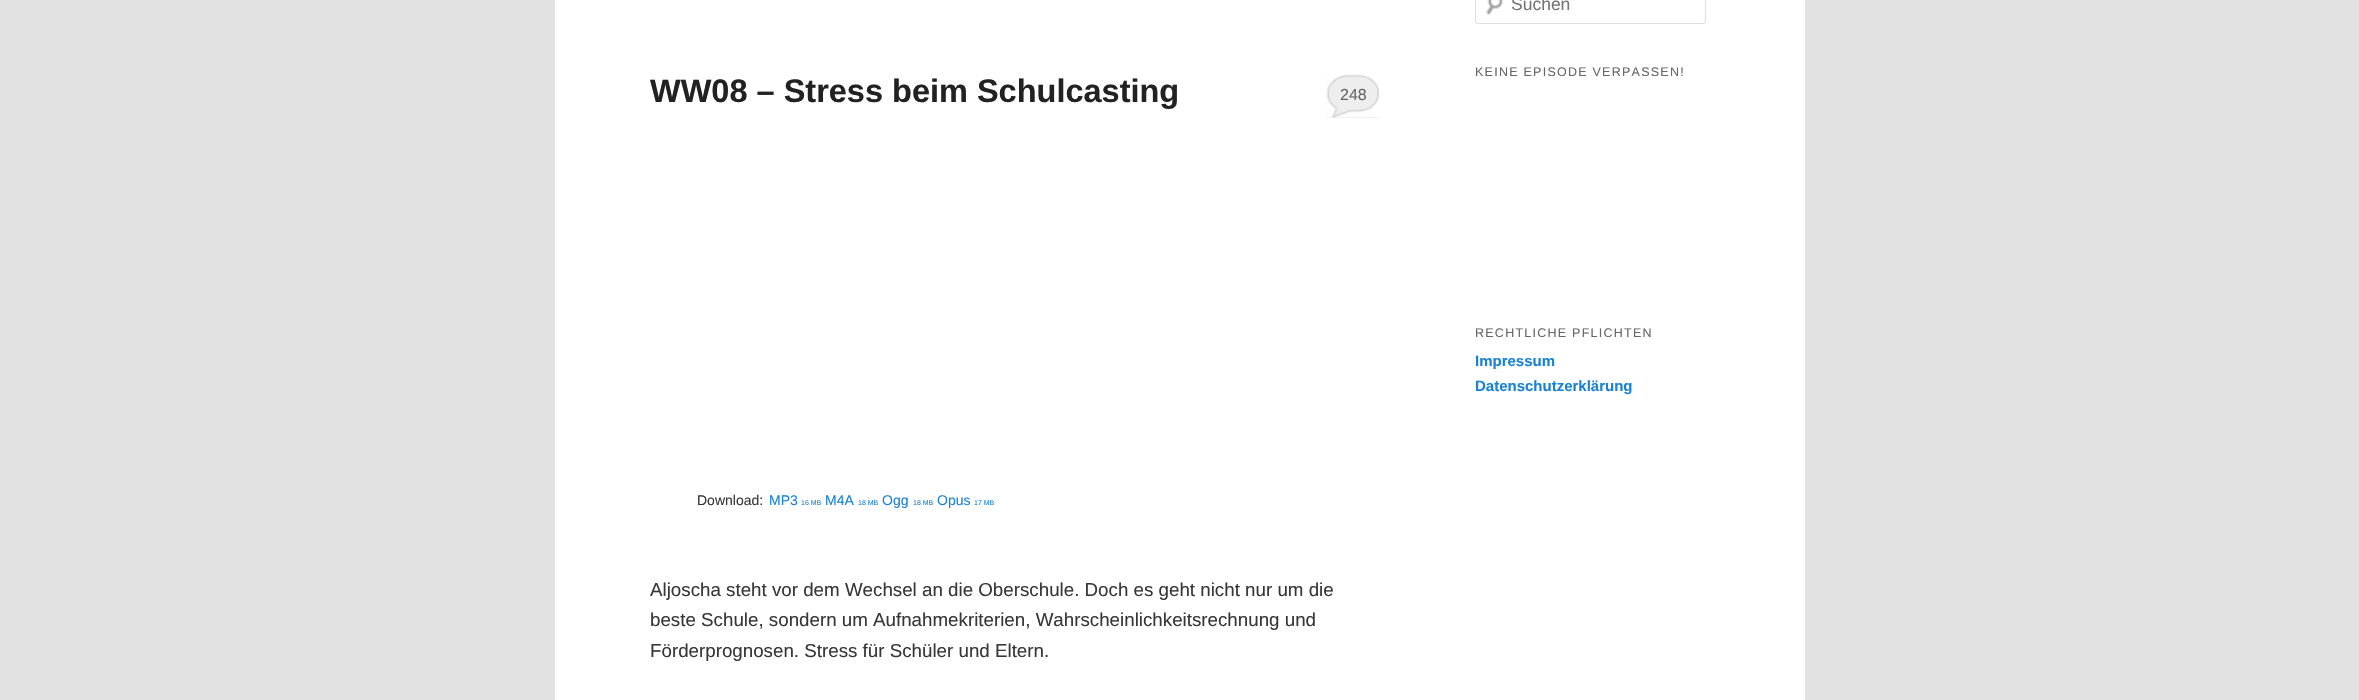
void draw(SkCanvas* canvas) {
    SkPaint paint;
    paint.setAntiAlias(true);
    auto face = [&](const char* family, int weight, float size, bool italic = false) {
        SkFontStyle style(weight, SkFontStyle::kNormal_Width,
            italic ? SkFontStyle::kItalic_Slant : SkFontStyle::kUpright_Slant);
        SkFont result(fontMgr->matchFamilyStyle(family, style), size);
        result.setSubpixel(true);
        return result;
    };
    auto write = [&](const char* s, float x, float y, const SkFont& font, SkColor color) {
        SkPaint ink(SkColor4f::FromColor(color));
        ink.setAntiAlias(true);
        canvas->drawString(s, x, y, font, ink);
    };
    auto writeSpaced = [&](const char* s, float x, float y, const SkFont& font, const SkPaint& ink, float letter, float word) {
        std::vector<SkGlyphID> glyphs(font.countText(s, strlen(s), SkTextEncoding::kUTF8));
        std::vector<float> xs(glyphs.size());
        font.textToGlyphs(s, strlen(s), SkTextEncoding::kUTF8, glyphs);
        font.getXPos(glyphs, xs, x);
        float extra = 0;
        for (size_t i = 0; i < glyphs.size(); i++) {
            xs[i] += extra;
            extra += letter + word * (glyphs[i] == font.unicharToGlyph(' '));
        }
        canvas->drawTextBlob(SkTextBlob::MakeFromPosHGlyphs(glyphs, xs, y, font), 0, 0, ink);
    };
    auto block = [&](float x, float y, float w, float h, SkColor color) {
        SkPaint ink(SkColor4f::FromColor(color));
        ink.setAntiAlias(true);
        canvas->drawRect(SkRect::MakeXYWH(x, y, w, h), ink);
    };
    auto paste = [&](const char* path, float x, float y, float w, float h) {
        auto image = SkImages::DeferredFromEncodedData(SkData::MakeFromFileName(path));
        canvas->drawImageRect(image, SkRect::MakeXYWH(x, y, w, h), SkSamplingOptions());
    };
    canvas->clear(SkColorSetRGB(226, 226, 226));
    block(555, 0, 1250, 700, SK_ColorWHITE);
    auto kFont1 = face("Liberation Sans", 700, 32.5f);
    write("WW08 – Stress beim Schulcasting", 650, 102, kFont1, SkColorSetRGB(34, 34, 34));
    block(1326, 73, 54, 45, SkColorSetRGB(238, 238, 238));
    paste("pic1.png", 1326, 73, 54, 45);
    auto kFont2 = face("Liberation Sans", 400, 16);
    write("248", 1340, 100, kFont2, SkColorSetRGB(102, 102, 102));
    auto kFont3 = face("Liberation Sans", 400, 14);
    write("Download:", 697, 505, kFont3, SkColorSetRGB(55, 55, 55));
    write("MP3", 769, 505, kFont3, SkColorSetRGB(25, 130, 209));
    auto kFont4 = face("Liberation Sans", 400, 7);
    write("16 MB", 801, 505, kFont4, SkColorSetRGB(25, 130, 209));
    write("M4A", 825, 505, kFont3, SkColorSetRGB(25, 130, 209));
    write("18 MB", 858, 505, kFont4, SkColorSetRGB(25, 130, 209));
    write("Ogg", 882, 505, kFont3, SkColorSetRGB(25, 130, 209));
    write("18 MB", 913, 505, kFont4, SkColorSetRGB(25, 130, 209));
    write("Opus", 937, 505, kFont3, SkColorSetRGB(25, 130, 209));
    write("17 MB", 974, 505, kFont4, SkColorSetRGB(25, 130, 209));
    auto kFont5 = face("Liberation Sans", 400, 18.75f);
    write("Aljoscha steht vor dem Wechsel an die Oberschule. Doch es geht nicht nur um die", 650, 596, kFont5, SkColorSetRGB(55, 55, 55));
    write("beste Schule, sondern um Aufnahmekriterien, Wahrscheinlichkeitsrechnung und", 650, 626, kFont5, SkColorSetRGB(55, 55, 55));
    write("Förderprognosen. Stress für Schüler und Eltern.", 650, 657, kFont5, SkColorSetRGB(55, 55, 55));
    paste("pic2.png", 1486, 0, 17, 15);
    paint.setStyle(SkPaint::kStroke_Style);
    paint.setStrokeWidth(1);
    paint.setColor(SkColorSetRGB(221, 221, 221));
    canvas->drawRoundRect(SkRect::MakeXYWH(1475.5f, -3.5f, 230, 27), 2, 2, paint);
    auto kFont6 = face("Liberation Sans", 400, 17.5f);
    write("Suchen", 1511, 10, kFont6, SkColorSetRGB(117, 117, 117));
    auto kFont7 = face("Liberation Sans", 400, 12.5f);
    paint.setStyle(SkPaint::kFill_Style);
    paint.setColor(SkColorSetRGB(102, 102, 102));
    writeSpaced("KEINE EPISODE VERPASSEN!", 1475, 76, kFont7, paint, 1.25f, 0);
    writeSpaced("RECHTLICHE PFLICHTEN", 1475, 337, kFont7, paint, 1.25f, 0);
    auto kFont8 = face("Liberation Sans", 700, 15);
    write("Impressum", 1475, 366, kFont8, SkColorSetRGB(25, 130, 209));
    write("Datenschutzerklärung", 1475, 391, kFont8, SkColorSetRGB(25, 130, 209));
}
